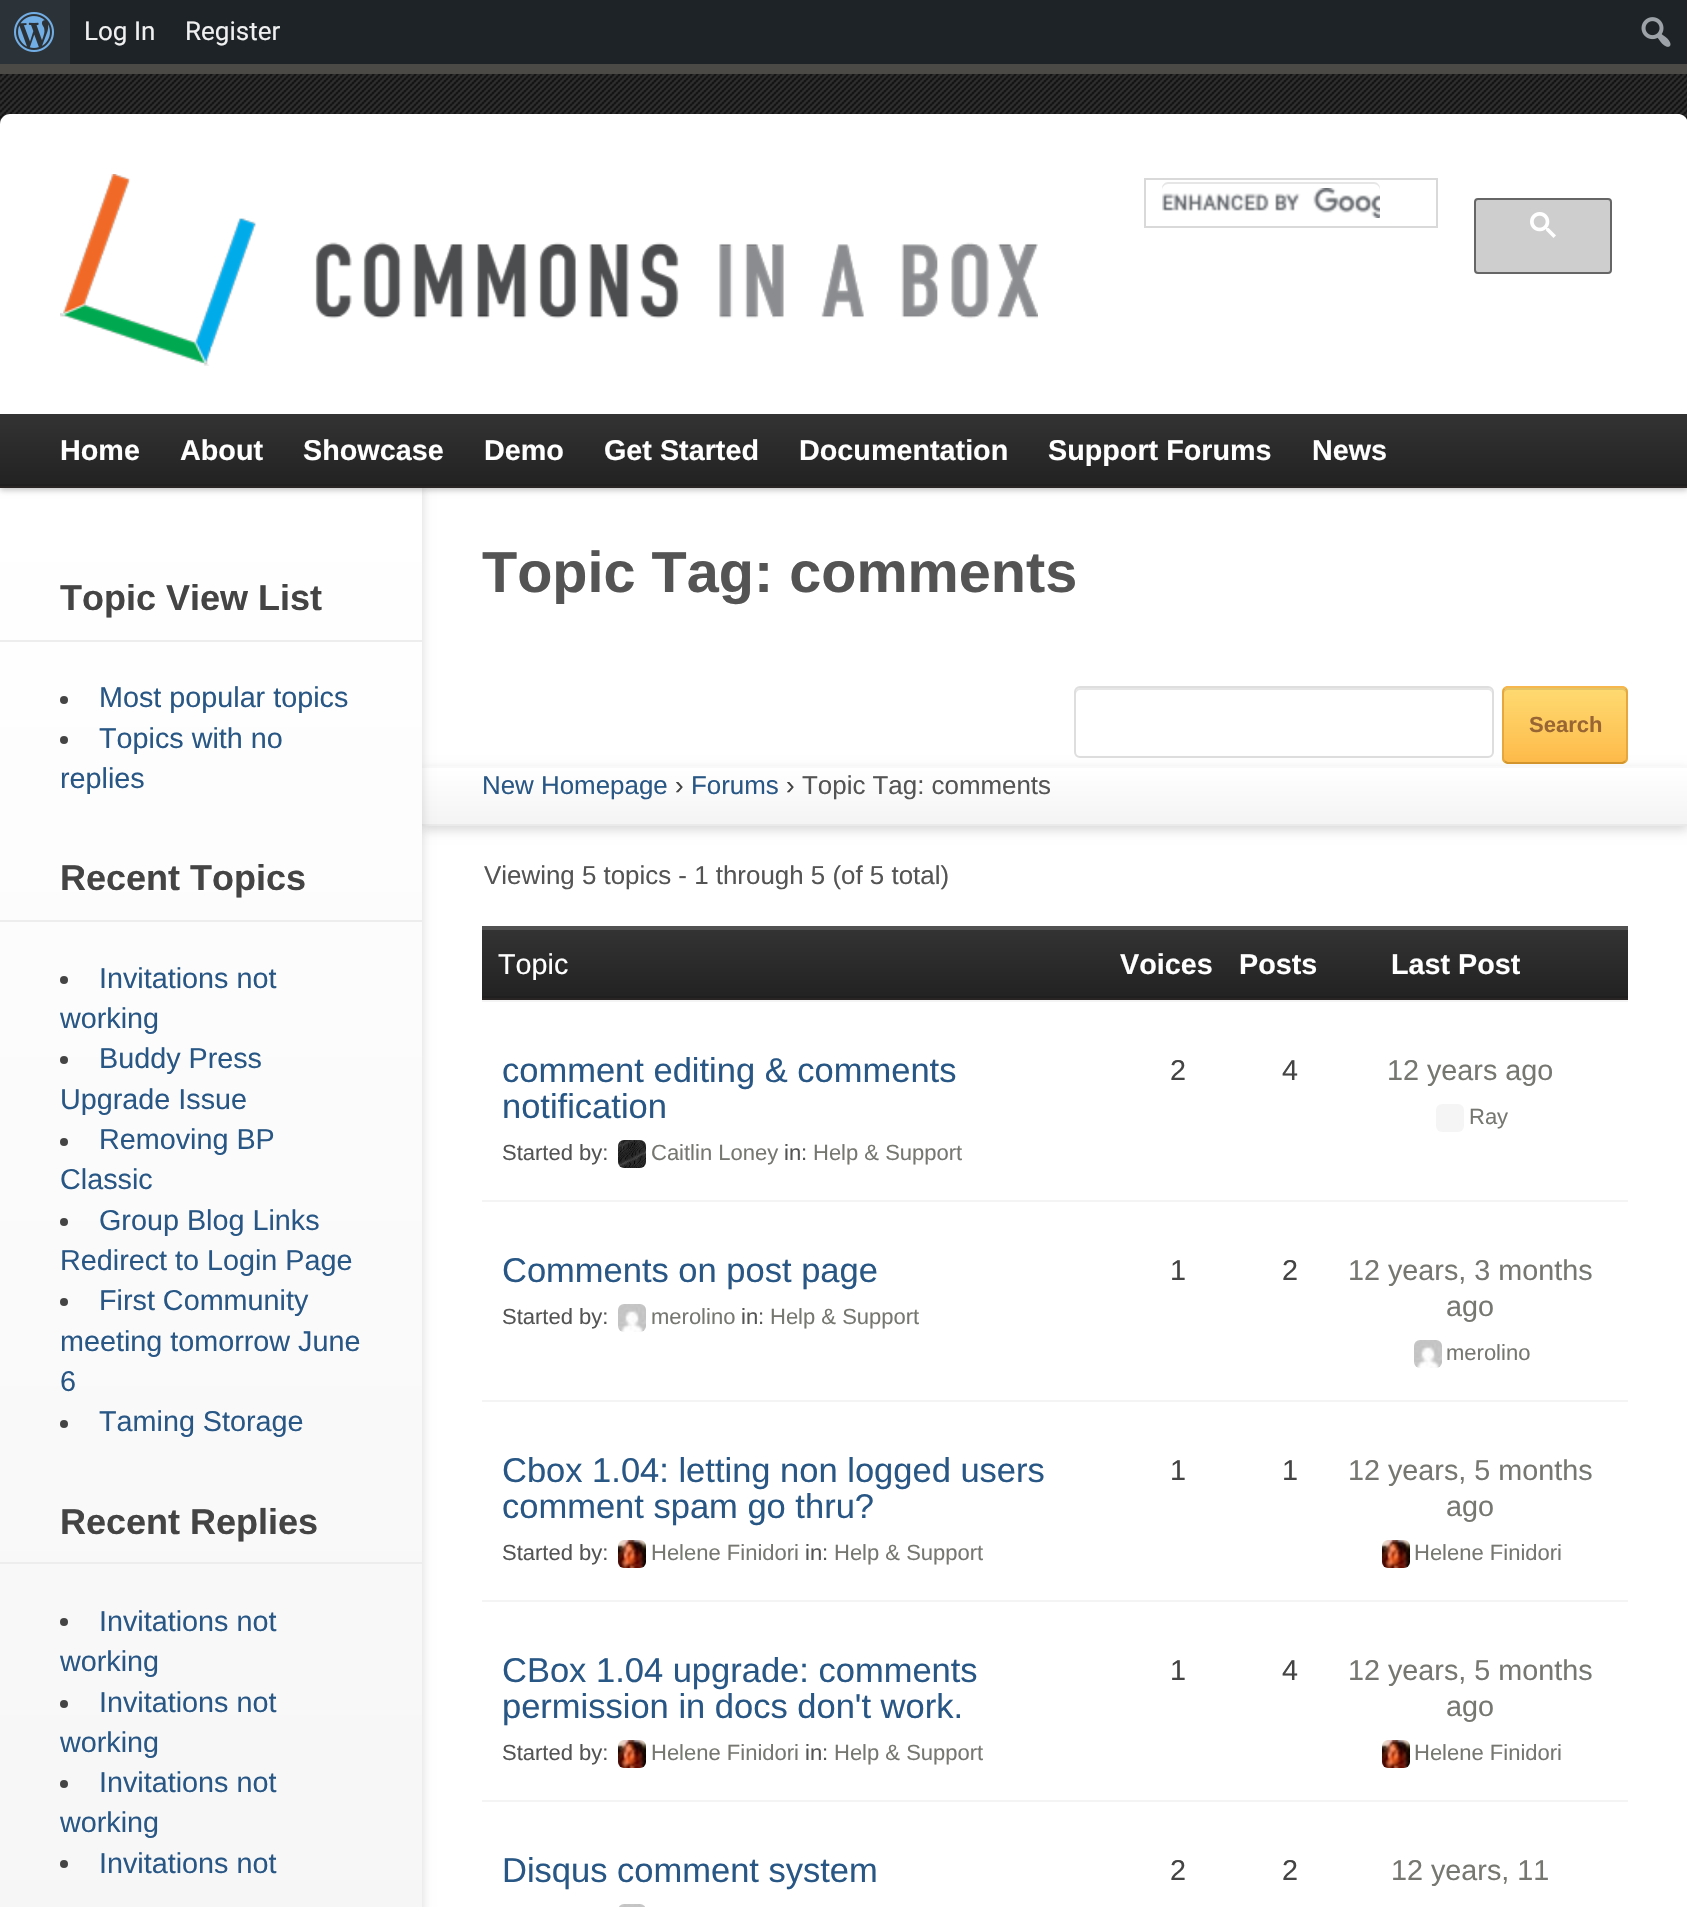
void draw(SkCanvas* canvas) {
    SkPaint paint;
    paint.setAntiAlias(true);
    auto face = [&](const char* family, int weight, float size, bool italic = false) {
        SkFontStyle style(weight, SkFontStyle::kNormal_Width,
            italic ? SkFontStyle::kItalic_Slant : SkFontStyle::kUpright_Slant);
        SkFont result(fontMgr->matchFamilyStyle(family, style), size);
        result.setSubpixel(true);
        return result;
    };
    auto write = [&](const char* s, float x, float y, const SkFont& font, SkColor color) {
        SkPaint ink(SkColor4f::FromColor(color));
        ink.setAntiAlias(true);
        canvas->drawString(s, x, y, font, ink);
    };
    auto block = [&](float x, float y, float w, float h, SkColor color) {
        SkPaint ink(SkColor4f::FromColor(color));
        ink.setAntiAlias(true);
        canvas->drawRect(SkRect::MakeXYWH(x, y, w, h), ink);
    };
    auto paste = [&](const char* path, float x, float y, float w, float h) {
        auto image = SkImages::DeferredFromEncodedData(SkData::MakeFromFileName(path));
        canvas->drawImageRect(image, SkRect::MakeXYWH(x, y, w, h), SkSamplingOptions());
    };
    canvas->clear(SK_ColorWHITE);
    paste("pic1.png", 0, 74, 1687, 50);
    block(0, 64, 1687, 10, SkColorSetRGB(75, 74, 71));
    block(70, 0, 1617, 64, SkColorSetRGB(29, 35, 39));
    block(0, 0, 70, 64, SkColorSetRGB(44, 51, 56));
    paste("pic2.png", 14, 12, 40, 40);
    auto kFont1 = face("Roboto", 400, 26);
    write("Log In", 84, 40, kFont1, SkColorSetRGB(240, 240, 241));
    write("Register", 185, 40, kFont1, SkColorSetRGB(240, 240, 241));
    paste("pic3.png", 1641, 17, 30, 30);
    paint.setColor(SkColorSetRGB(230, 230, 230));
    canvas->drawPath(SkPathBuilder().moveTo(1080, 690).lineTo(1488, 690).cubicTo(1490, 690, 1492, 692, 1492, 694).cubicTo(1492, 691, 1492, 688, 1488, 688).lineTo(1080, 688).cubicTo(1076, 688, 1076, 691, 1076, 694).cubicTo(1076, 692, 1078, 690, 1080, 690).close().detach(), paint);
    paint.setStyle(SkPaint::kStroke_Style);
    paint.setStrokeWidth(2);
    paint.setColor(SkColorSetRGB(222, 222, 222));
    canvas->drawRoundRect(SkRect::MakeXYWH(1075, 687, 418, 70), 5, 5, paint);
    canvas->save();
    canvas->clipPath(SkPathBuilder().moveTo(1508, 686).lineTo(1622, 686).cubicTo(1625.5f, 686, 1628, 688.5f, 1628, 692).lineTo(1628, 758).cubicTo(1628, 761.5f, 1625.5f, 764, 1622, 764).lineTo(1508, 764).cubicTo(1504.5f, 764, 1502, 761.5f, 1502, 758).lineTo(1502, 692).cubicTo(1502, 688.5f, 1504.5f, 686, 1508, 686).close().detach(), true);
    paint.setStyle(SkPaint::kFill_Style);
    {
        const SkColor colors[] = {SkColorSetRGB(254, 218, 113), SkColorSetRGB(254, 187, 74)};
        const float stops[] = {0, 1};
        const SkPoint ends[] = {{1565, 688}, {1565, 762}};
        paint.setShader(SkGradientShader::MakeLinear(ends, colors, stops, 2, SkTileMode::kClamp));
        paint.setAlpha(255);
    }
    canvas->drawRect(SkRect::MakeXYWH(1502, 688, 126, 74), paint);
    {
        const SkColor colors[] = {SkColorSetRGB(254, 218, 113), SkColorSetRGB(254, 187, 74)};
        const float stops[] = {0, 1};
        const SkPoint ends[] = {{1565, 762}, {1565, 836}};
        paint.setShader(SkGradientShader::MakeLinear(ends, colors, stops, 2, SkTileMode::kClamp));
        paint.setAlpha(255);
    }
    canvas->drawRect(SkRect::MakeXYWH(1502, 762, 126, 2), paint);
    {
        const SkColor colors[] = {SkColorSetRGB(254, 218, 113), SkColorSetRGB(254, 187, 74)};
        const float stops[] = {0, 1};
        const SkPoint ends[] = {{1565, 614}, {1565, 688}};
        paint.setShader(SkGradientShader::MakeLinear(ends, colors, stops, 2, SkTileMode::kClamp));
        paint.setAlpha(255);
    }
    canvas->drawRect(SkRect::MakeXYWH(1502, 686, 126, 2), paint);
    canvas->restore();
    paint.setShader(nullptr);
    paint.setColor(SkColorSetRGB(229, 196, 101));
    canvas->drawPath(SkPathBuilder().moveTo(1508, 690).lineTo(1622, 690).cubicTo(1624, 690, 1626, 692, 1626, 694).lineTo(1626, 692).cubicTo(1626, 690, 1624, 688, 1622, 688).lineTo(1508, 688).cubicTo(1506, 688, 1504, 690, 1504, 692).lineTo(1504, 694).cubicTo(1504, 692, 1506, 690, 1508, 690).close().detach(), paint);
    paint.setStyle(SkPaint::kStroke_Style);
    paint.setColor(SkColorSetRGB(245, 183, 78));
    canvas->drawPath(SkPathBuilder().moveTo(1504.5f, 688.5f).lineTo(1507.5f, 687).lineTo(1622.5f, 687).lineTo(1625.5f, 688.5f).detach(), paint);
    paint.setColor(SkColorSetRGB(229, 167, 62));
    canvas->drawPath(SkPathBuilder().moveTo(1625.5f, 688.5f).cubicTo(1626.5f, 689.5f, 1627, 690.5f, 1627, 692).lineTo(1627, 758).cubicTo(1627, 759.5f, 1626.5f, 760.5f, 1625.5f, 761.5f).detach(), paint);
    paint.setColor(SkColorSetRGB(214, 152, 47));
    canvas->drawPath(SkPathBuilder().moveTo(1625.5f, 761.5f).lineTo(1622.5f, 763).lineTo(1507.5f, 763).lineTo(1504.5f, 761.5f).detach(), paint);
    paint.setColor(SkColorSetRGB(229, 167, 62));
    canvas->drawPath(SkPathBuilder().moveTo(1504.5f, 761.5f).cubicTo(1503.5f, 760.5f, 1503, 759.5f, 1503, 758).lineTo(1503, 692).cubicTo(1503, 690.5f, 1503.5f, 689.5f, 1504.5f, 688.5f).detach(), paint);
    paint.setStyle(SkPaint::kFill_Style);
    paint.setColor(SkColorSetARGB(38, 0, 0, 0));
    paint.setMaskFilter(SkMaskFilter::MakeBlur(kNormal_SkBlurStyle, 5));
    canvas->drawRect(SkRect::MakeXYWH(422, 770, 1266, 60), paint);
    paint.setMaskFilter(nullptr);
    {
        const SkColor colors[] = {SK_ColorWHITE, SkColorSetRGB(244, 244, 244)};
        const float stops[] = {0, 1};
        const SkPoint ends[] = {{1055, 768}, {1055, 824}};
        paint.setShader(SkGradientShader::MakeLinear(ends, colors, stops, 2, SkTileMode::kClamp));
        paint.setAlpha(255);
    }
    canvas->drawRect(SkRect::MakeXYWH(422, 768, 1265, 56), paint);
    block(422, 766, 1265, 2, SkColorSetRGB(249, 249, 249));
    block(422, 824, 1265, 2, SkColorSetRGB(234, 234, 234));
    paint.setShader(nullptr);
    paint.setColor(SkColorSetARGB(38, 0, 0, 0));
    paint.setMaskFilter(SkMaskFilter::MakeBlur(kNormal_SkBlurStyle, 5));
    canvas->drawRect(SkRect::MakeXYWH(0, 484, 422, 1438), paint);
    paint.setMaskFilter(nullptr);
    {
        const SkColor colors[] = {SK_ColorWHITE, SkColorSetRGB(244, 244, 244)};
        const float stops[] = {0, 1};
        const SkPoint ends[] = {{211, 480}, {211, 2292}};
        paint.setShader(SkGradientShader::MakeLinear(ends, colors, stops, 2, SkTileMode::kClamp));
        paint.setAlpha(255);
    }
    canvas->drawRect(SkRect::MakeXYWH(0, 488, 422, 1419), paint);
    paint.setShader(nullptr);
    paint.setColor(SkColorSetARGB(64, 0, 0, 0));
    paint.setMaskFilter(SkMaskFilter::MakeBlur(kNormal_SkBlurStyle, 3));
    canvas->drawRect(SkRect::MakeXYWH(0, 416, 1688, 74), paint);
    paint.setMaskFilter(nullptr);
    paint.setColor(SK_ColorWHITE);
    canvas->drawPath(SkPathBuilder().moveTo(10, 114).lineTo(1678, 114).cubicTo(1683.5f, 114, 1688, 118.5f, 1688, 124).lineTo(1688, 414).lineTo(0, 414).lineTo(0, 124).cubicTo(0, 118.5f, 4.5f, 114, 10, 114).close().detach(), paint);
    paste("pic4.png", 60, 174, 978, 192);
    paint.setStyle(SkPaint::kStroke_Style);
    paint.setColor(SkColorSetRGB(217, 217, 217));
    canvas->drawRect(SkRect::MakeXYWH(1145, 179, 292, 48), paint);
    paste("pic5.png", 1162, 188, 218, 30);
    paint.setStyle(SkPaint::kFill_Style);
    paint.setColor(SkColorSetRGB(230, 230, 230));
    canvas->drawPath(SkPathBuilder().moveTo(1168, 184).lineTo(1374, 184).cubicTo(1377, 184, 1380, 187, 1380, 190).lineTo(1380, 188).cubicTo(1380, 185, 1377, 182, 1374, 182).lineTo(1168, 182).cubicTo(1165, 182, 1162, 185, 1162, 188).lineTo(1162, 190).cubicTo(1162, 187, 1165, 184, 1168, 184).close().detach(), paint);
    paint.setColor(SkColorSetRGB(206, 206, 206));
    canvas->drawRoundRect(SkRect::MakeXYWH(1475, 199, 136, 74), 3, 3, paint);
    paint.setStyle(SkPaint::kStroke_Style);
    paint.setColor(SkColorSetRGB(102, 102, 102));
    canvas->drawRoundRect(SkRect::MakeXYWH(1475, 199, 136, 74), 3, 3, paint);
    paste("pic6.png", 1530, 212, 26, 26);
    paint.setStyle(SkPaint::kFill_Style);
    {
        const SkColor colors[] = {SkColorSetRGB(51, 51, 51), SkColorSetRGB(34, 34, 34)};
        const float stops[] = {0, 1};
        const SkPoint ends[] = {{844, 414}, {844, 486}};
        paint.setShader(SkGradientShader::MakeLinear(ends, colors, stops, 2, SkTileMode::kClamp));
        paint.setAlpha(255);
    }
    canvas->drawRect(SkRect::MakeXYWH(0, 414, 1687, 70), paint);
    block(0, 484, 1687, 2, SkColorSetRGB(31, 31, 31));
    block(0, 486, 1687, 2, SkColorSetRGB(41, 37, 37));
    auto kFont2 = face("Liberation Sans", 700, 28.75f);
    write("Home", 60, 460, kFont2, SK_ColorWHITE);
    write("About", 180, 460, kFont2, SK_ColorWHITE);
    write("Showcase", 303, 460, kFont2, SK_ColorWHITE);
    write("Demo", 484, 460, kFont2, SK_ColorWHITE);
    write("Get Started", 604, 460, kFont2, SK_ColorWHITE);
    write("Documentation", 799, 460, kFont2, SK_ColorWHITE);
    write("Support Forums", 1048, 460, kFont2, SK_ColorWHITE);
    write("News", 1312, 460, kFont2, SK_ColorWHITE);
    block(0, 640, 422, 2, SkColorSetRGB(237, 237, 237));
    auto kFont3 = face("Liberation Sans", 700, 36);
    write("Topic View List", 60, 610, kFont3, SkColorSetRGB(68, 68, 68));
    paint.setShader(nullptr);
    paint.setColor(SkColorSetRGB(68, 68, 68));
    canvas->drawCircle(64, 700, 4, paint);
    auto kFont4 = face("Liberation Sans", 400, 28.75f);
    write("Most popular topics", 99, 707, kFont4, SkColorSetRGB(41, 87, 133));
    canvas->drawCircle(64, 740, 4, paint);
    write("Topics with no", 99, 748, kFont4, SkColorSetRGB(41, 87, 133));
    write("replies", 60, 788, kFont4, SkColorSetRGB(41, 87, 133));
    block(0, 920, 422, 2, SkColorSetRGB(237, 237, 237));
    write("Recent Topics", 60, 890, kFont3, SkColorSetRGB(68, 68, 68));
    canvas->drawCircle(64, 980, 4, paint);
    write("Invitations not", 99, 988, kFont4, SkColorSetRGB(41, 87, 133));
    write("working", 60, 1028, kFont4, SkColorSetRGB(41, 87, 133));
    canvas->drawCircle(64, 1060, 4, paint);
    write("Buddy Press", 99, 1068, kFont4, SkColorSetRGB(41, 87, 133));
    write("Upgrade Issue", 60, 1109, kFont4, SkColorSetRGB(41, 87, 133));
    canvas->drawCircle(64, 1142, 4, paint);
    write("Removing BP", 99, 1149, kFont4, SkColorSetRGB(41, 87, 133));
    write("Classic", 60, 1189, kFont4, SkColorSetRGB(41, 87, 133));
    canvas->drawCircle(64, 1222, 4, paint);
    write("Group Blog Links", 99, 1230, kFont4, SkColorSetRGB(41, 87, 133));
    write("Redirect to Login Page", 60, 1270, kFont4, SkColorSetRGB(41, 87, 133));
    canvas->drawCircle(64, 1302, 4, paint);
    write("First Community", 99, 1310, kFont4, SkColorSetRGB(41, 87, 133));
    write("meeting tomorrow June", 60, 1351, kFont4, SkColorSetRGB(41, 87, 133));
    write("6", 60, 1391, kFont4, SkColorSetRGB(41, 87, 133));
    canvas->drawCircle(64, 1424, 4, paint);
    write("Taming Storage", 99, 1431, kFont4, SkColorSetRGB(41, 87, 133));
    block(0, 1562, 422, 2, SkColorSetRGB(237, 237, 237));
    write("Recent Replies", 60, 1534, kFont3, SkColorSetRGB(68, 68, 68));
    canvas->drawCircle(64, 1622, 4, paint);
    write("Invitations not", 99, 1631, kFont4, SkColorSetRGB(41, 87, 133));
    write("working", 60, 1671, kFont4, SkColorSetRGB(41, 87, 133));
    canvas->drawCircle(64, 1704, 4, paint);
    write("Invitations not", 99, 1712, kFont4, SkColorSetRGB(41, 87, 133));
    write("working", 60, 1752, kFont4, SkColorSetRGB(41, 87, 133));
    canvas->drawCircle(64, 1784, 4, paint);
    write("Invitations not", 99, 1792, kFont4, SkColorSetRGB(41, 87, 133));
    write("working", 60, 1832, kFont4, SkColorSetRGB(41, 87, 133));
    canvas->drawCircle(64, 1864, 4, paint);
    write("Invitations not", 99, 1873, kFont4, SkColorSetRGB(41, 87, 133));
    auto kFont5 = face("Liberation Sans", 700, 57.6f);
    write("Topic Tag: comments", 482, 592, kFont5, SkColorSetRGB(84, 84, 84));
    auto kFont6 = face("Liberation Sans", 700, 22);
    write("Search", 1529, 732, kFont6, SkColorSetRGB(153, 102, 51));
    auto kFont7 = face("Liberation Sans", 400, 25.9f);
    write("New Homepage", 482, 794, kFont7, SkColorSetRGB(41, 87, 133));
    write("›", 675, 794, kFont7, SkColorSetRGB(68, 68, 68));
    write("Forums", 691, 794, kFont7, SkColorSetRGB(41, 87, 133));
    write("›", 786, 794, kFont7, SkColorSetRGB(68, 68, 68));
    write("Topic Tag: comments", 802, 794, kFont7, SkColorSetRGB(84, 84, 84));
    write("Viewing 5 topics - 1 through 5 (of 5 total)", 484, 884, kFont7, SkColorSetRGB(84, 84, 84));
    {
        const SkColor colors[] = {SkColorSetRGB(51, 51, 51), SkColorSetRGB(34, 34, 34)};
        const float stops[] = {0, 1};
        const SkPoint ends[] = {{1055, 930}, {1055, 998}};
        paint.setShader(SkGradientShader::MakeLinear(ends, colors, stops, 2, SkTileMode::kClamp));
        paint.setAlpha(255);
    }
    canvas->drawRect(SkRect::MakeXYWH(482, 930, 1146, 66), paint);
    block(482, 996, 1146, 2, SkColorSetRGB(31, 31, 31));
    block(482, 926, 1146, 4, SkColorSetRGB(82, 81, 81));
    block(482, 998, 1146, 2, SkColorSetRGB(41, 37, 37));
    write("Topic", 498, 974, kFont4, SK_ColorWHITE);
    write("Voices", 1120, 974, kFont2, SK_ColorWHITE);
    write("Posts", 1239, 974, kFont2, SK_ColorWHITE);
    write("Last Post", 1391, 974, kFont2, SK_ColorWHITE);
    block(482, 1000, 1146, 2, SkColorSetRGB(244, 244, 244));
    auto kFont8 = face("Liberation Sans", 400, 34.5f);
    write("comment editing & comments", 502, 1082, kFont8, SkColorSetRGB(41, 87, 133));
    write("notification", 502, 1118, kFont8, SkColorSetRGB(41, 87, 133));
    auto kFont9 = face("Liberation Sans", 400, 22);
    write("Started by:", 502, 1160, kFont9, SkColorSetRGB(84, 84, 84));
    paste("pic7.png", 618, 1140, 28, 28);
    write("Caitlin Loney", 651, 1160, kFont9, SkColorSetRGB(119, 119, 114));
    write("in:", 784, 1160, kFont9, SkColorSetRGB(84, 84, 84));
    write("Help & Support", 813, 1160, kFont9, SkColorSetRGB(119, 119, 114));
    write("2", 1170, 1080, kFont4, SkColorSetRGB(68, 68, 68));
    write("4", 1282, 1080, kFont4, SkColorSetRGB(68, 68, 68));
    write("12 years ago", 1387, 1080, kFont4, SkColorSetRGB(119, 119, 114));
    paste("pic8.png", 1436, 1104, 28, 28);
    write("Ray", 1469, 1124, kFont9, SkColorSetRGB(119, 119, 114));
    block(482, 1200, 1146, 2, SkColorSetRGB(244, 244, 244));
    write("Comments on post page", 502, 1282, kFont8, SkColorSetRGB(41, 87, 133));
    write("Started by:", 502, 1324, kFont9, SkColorSetRGB(84, 84, 84));
    paste("pic9.png", 618, 1304, 28, 28);
    write("merolino", 651, 1324, kFont9, SkColorSetRGB(119, 119, 114));
    write("in:", 741, 1324, kFont9, SkColorSetRGB(84, 84, 84));
    write("Help & Support", 770, 1324, kFont9, SkColorSetRGB(119, 119, 114));
    write("1", 1170, 1280, kFont4, SkColorSetRGB(68, 68, 68));
    write("2", 1282, 1280, kFont4, SkColorSetRGB(68, 68, 68));
    write("12 years, 3 months", 1348, 1280, kFont4, SkColorSetRGB(119, 119, 114));
    write("ago", 1446, 1316, kFont4, SkColorSetRGB(119, 119, 114));
    paste("pic9.png", 1414, 1340, 28, 28);
    write("merolino", 1446, 1360, kFont9, SkColorSetRGB(119, 119, 114));
    block(482, 1400, 1146, 2, SkColorSetRGB(244, 244, 244));
    write("Cbox 1.04: letting non logged users", 502, 1482, kFont8, SkColorSetRGB(41, 87, 133));
    write("comment spam go thru?", 502, 1518, kFont8, SkColorSetRGB(41, 87, 133));
    write("Started by:", 502, 1560, kFont9, SkColorSetRGB(84, 84, 84));
    paste("pic10.png", 618, 1540, 28, 28);
    write("Helene Finidori", 651, 1560, kFont9, SkColorSetRGB(119, 119, 114));
    write("in:", 805, 1560, kFont9, SkColorSetRGB(84, 84, 84));
    write("Help & Support", 834, 1560, kFont9, SkColorSetRGB(119, 119, 114));
    write("1", 1170, 1480, kFont4, SkColorSetRGB(68, 68, 68));
    write("1", 1282, 1480, kFont4, SkColorSetRGB(68, 68, 68));
    write("12 years, 5 months", 1348, 1480, kFont4, SkColorSetRGB(119, 119, 114));
    write("ago", 1446, 1516, kFont4, SkColorSetRGB(119, 119, 114));
    paste("pic10.png", 1382, 1540, 28, 28);
    write("Helene Finidori", 1414, 1560, kFont9, SkColorSetRGB(119, 119, 114));
    block(482, 1600, 1146, 2, SkColorSetRGB(244, 244, 244));
    write("CBox 1.04 upgrade: comments", 502, 1682, kFont8, SkColorSetRGB(41, 87, 133));
    write("permission in docs don't work.", 502, 1718, kFont8, SkColorSetRGB(41, 87, 133));
    write("Started by:", 502, 1760, kFont9, SkColorSetRGB(84, 84, 84));
    paste("pic10.png", 618, 1740, 28, 28);
    write("Helene Finidori", 651, 1760, kFont9, SkColorSetRGB(119, 119, 114));
    write("in:", 805, 1760, kFont9, SkColorSetRGB(84, 84, 84));
    write("Help & Support", 834, 1760, kFont9, SkColorSetRGB(119, 119, 114));
    write("1", 1170, 1680, kFont4, SkColorSetRGB(68, 68, 68));
    write("4", 1282, 1680, kFont4, SkColorSetRGB(68, 68, 68));
    write("12 years, 5 months", 1348, 1680, kFont4, SkColorSetRGB(119, 119, 114));
    write("ago", 1446, 1716, kFont4, SkColorSetRGB(119, 119, 114));
    paste("pic10.png", 1382, 1740, 28, 28);
    write("Helene Finidori", 1414, 1760, kFont9, SkColorSetRGB(119, 119, 114));
    block(482, 1800, 1146, 2, SkColorSetRGB(244, 244, 244));
    write("Disqus comment system", 502, 1882, kFont8, SkColorSetRGB(41, 87, 133));
    paste("pic11.png", 619, 1904, 26, 3);
    write("2", 1170, 1880, kFont4, SkColorSetRGB(68, 68, 68));
    write("2", 1282, 1880, kFont4, SkColorSetRGB(68, 68, 68));
    write("12 years, 11", 1391, 1880, kFont4, SkColorSetRGB(119, 119, 114));
}
